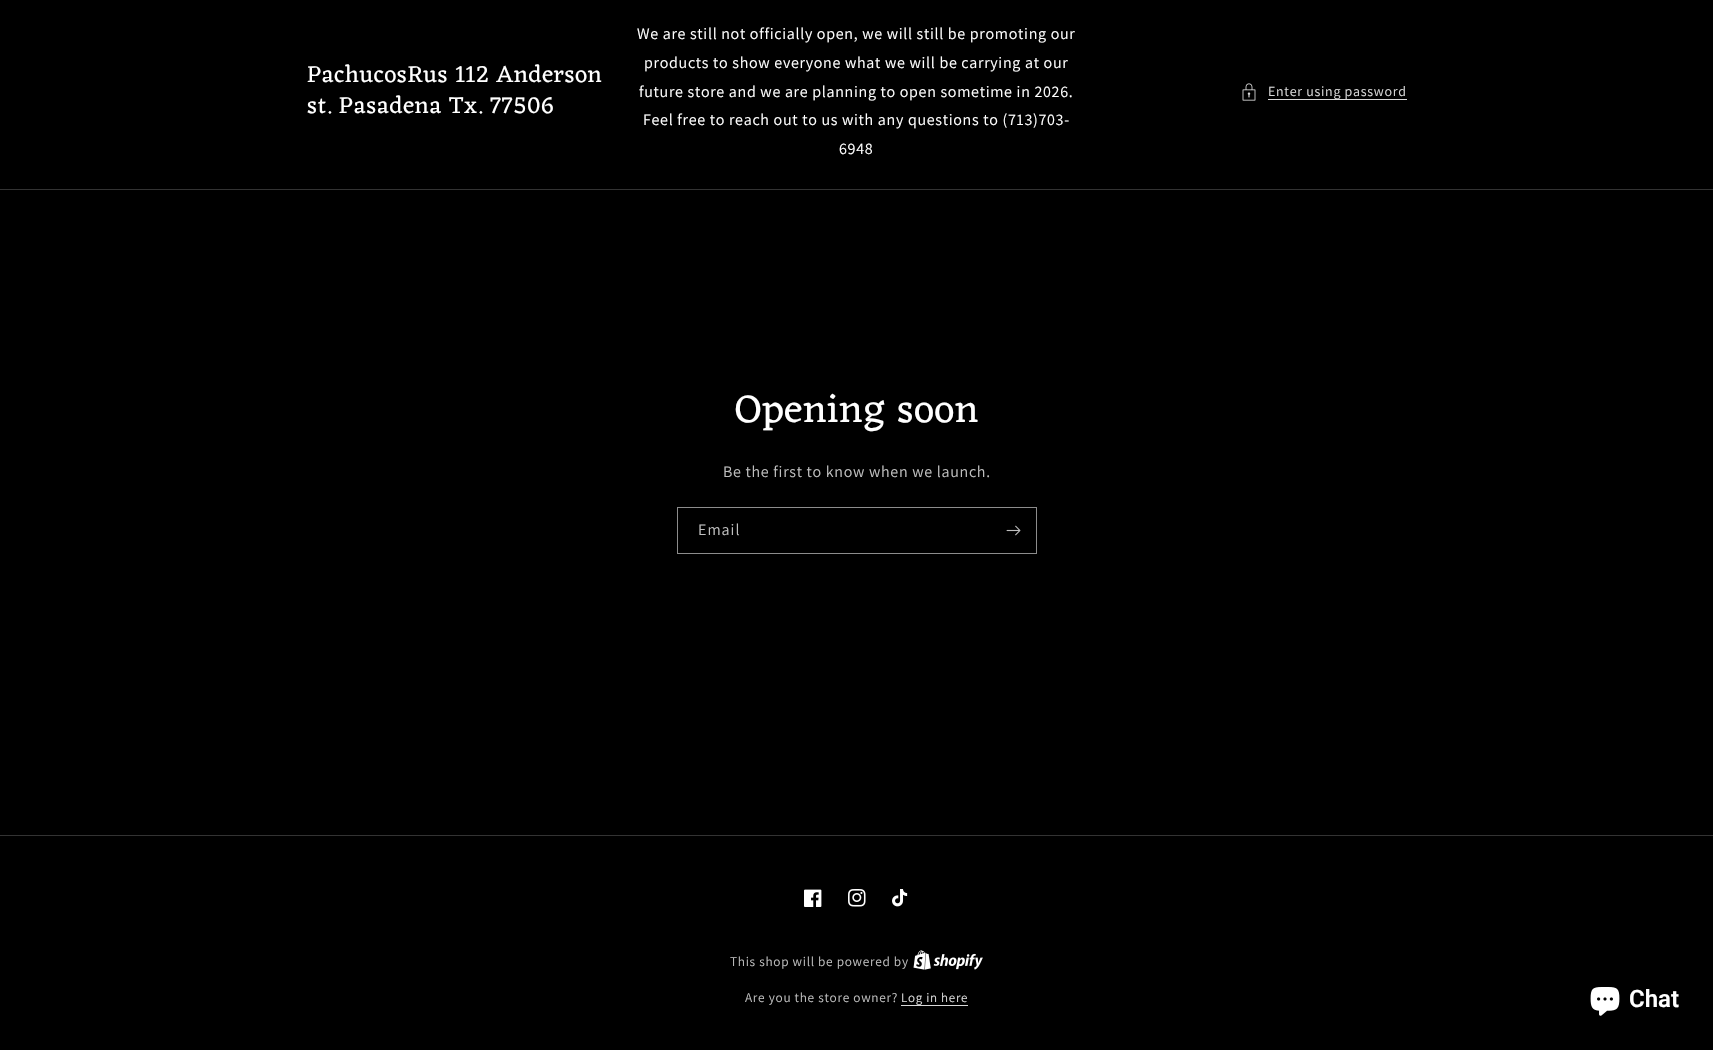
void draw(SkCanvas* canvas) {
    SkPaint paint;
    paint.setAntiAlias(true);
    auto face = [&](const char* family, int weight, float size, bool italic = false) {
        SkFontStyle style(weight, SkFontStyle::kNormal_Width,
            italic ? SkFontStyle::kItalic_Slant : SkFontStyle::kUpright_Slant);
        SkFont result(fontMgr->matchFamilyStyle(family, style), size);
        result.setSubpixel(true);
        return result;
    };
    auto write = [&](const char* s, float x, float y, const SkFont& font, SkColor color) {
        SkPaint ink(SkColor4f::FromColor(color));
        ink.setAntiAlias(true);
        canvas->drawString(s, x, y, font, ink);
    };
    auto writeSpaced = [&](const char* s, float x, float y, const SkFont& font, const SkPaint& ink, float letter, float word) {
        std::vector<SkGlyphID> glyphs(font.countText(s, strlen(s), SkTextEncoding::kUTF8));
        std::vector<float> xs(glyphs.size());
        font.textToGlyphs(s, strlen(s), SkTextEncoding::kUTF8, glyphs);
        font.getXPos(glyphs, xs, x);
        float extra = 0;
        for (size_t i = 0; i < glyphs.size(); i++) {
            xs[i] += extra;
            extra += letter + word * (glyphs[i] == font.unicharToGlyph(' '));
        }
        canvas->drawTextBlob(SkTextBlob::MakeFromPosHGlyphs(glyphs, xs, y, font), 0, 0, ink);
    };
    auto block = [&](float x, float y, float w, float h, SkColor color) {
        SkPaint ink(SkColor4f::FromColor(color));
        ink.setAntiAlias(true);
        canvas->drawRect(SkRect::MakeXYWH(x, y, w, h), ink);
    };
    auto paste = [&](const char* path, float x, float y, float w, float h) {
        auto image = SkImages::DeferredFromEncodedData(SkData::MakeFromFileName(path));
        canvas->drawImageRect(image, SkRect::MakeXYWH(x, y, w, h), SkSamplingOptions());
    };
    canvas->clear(SK_ColorBLACK);
    auto kFont1 = face("Eczar", 400, 24);
    paint.setColor(SK_ColorWHITE);
    writeSpaced("PachucosRus 112 Anderson", 307, 82, kFont1, paint, 0.6f, 0);
    writeSpaced("st. Pasadena Tx. 77506", 307, 113, kFont1, paint, 0.6f, 0);
    auto kFont2 = face("Assistant", 400, 16);
    writeSpaced("We are still not officially open, we will still be promoting our", 637, 39, kFont2, paint, 0.7f, 0);
    writeSpaced("products to show everyone what we will be carrying at our", 644, 68, kFont2, paint, 0.7f, 0);
    writeSpaced("future store and we are planning to open sometime in 2026.", 639, 97, kFont2, paint, 0.7f, 0);
    writeSpaced("Feel free to reach out to us with any questions to (713)703-", 643, 125, kFont2, paint, 0.7f, 0);
    writeSpaced("6948", 839, 154, kFont2, paint, 0.7f, 0);
    paste("pic1.png", 1242, 83, 14, 18);
    block(1268, 99, 139, 1, SkColorSetRGB(217, 217, 217));
    auto kFont3 = face("Assistant", 400, 14);
    paint.setColor(SkColorSetRGB(217, 217, 217));
    writeSpaced("Enter using password", 1268, 96, kFont3, paint, 0.7f, 0);
    block(0, 189, 1713, 1, SkColorSetRGB(51, 51, 51));
    auto kFont4 = face("Eczar", 400, 40);
    paint.setColor(SK_ColorWHITE);
    writeSpaced("Opening soon", 735, 422, kFont4, paint, 0.6f, 0);
    paint.setColor(SkColorSetRGB(191, 191, 191));
    writeSpaced("Be the first to know when we launch.", 723, 477, kFont2, paint, 0.7f, 0);
    paint.setStyle(SkPaint::kStroke_Style);
    paint.setStrokeWidth(1);
    paint.setColor(SkColorSetRGB(140, 140, 140));
    canvas->drawRect(SkRect::MakeXYWH(677.5f, 507.5f, 359, 46), paint);
    paint.setStyle(SkPaint::kFill_Style);
    paint.setColor(SkColorSetRGB(191, 191, 191));
    writeSpaced("Email", 698, 535, kFont2, paint, 1, 0);
    paste("pic2.png", 1006, 525, 15, 11);
    block(0, 835, 1713, 1, SkColorSetRGB(51, 51, 51));
    paste("pic3.png", 804, 889, 18, 18);
    paste("pic4.png", 848, 889, 18, 18);
    paste("pic5.png", 892, 889, 16, 18);
    auto kFont5 = face("Assistant", 400, 13.3f);
    writeSpaced("This shop will be powered by", 730, 966, kFont5, paint, 0.7f, 0);
    paste("pic6.png", 913, 950, 70, 20);
    writeSpaced("Are you the store owner?", 745, 1002, kFont5, paint, 0.7f, 0);
    auto kFont6 = face("Assistant", 400, 13);
    paint.setColor(SkColorSetRGB(217, 217, 217));
    writeSpaced("Log in here", 901, 1002, kFont6, paint, 0.7f, 0);
    block(901, 1005, 67, 1, SkColorSetRGB(217, 217, 217));
    paste("pic7.png", 1590, 987, 30, 29);
    auto kFont7 = face("Roboto", 600, 24);
    write("Chat", 1629, 1007, kFont7, SK_ColorWHITE);
}
